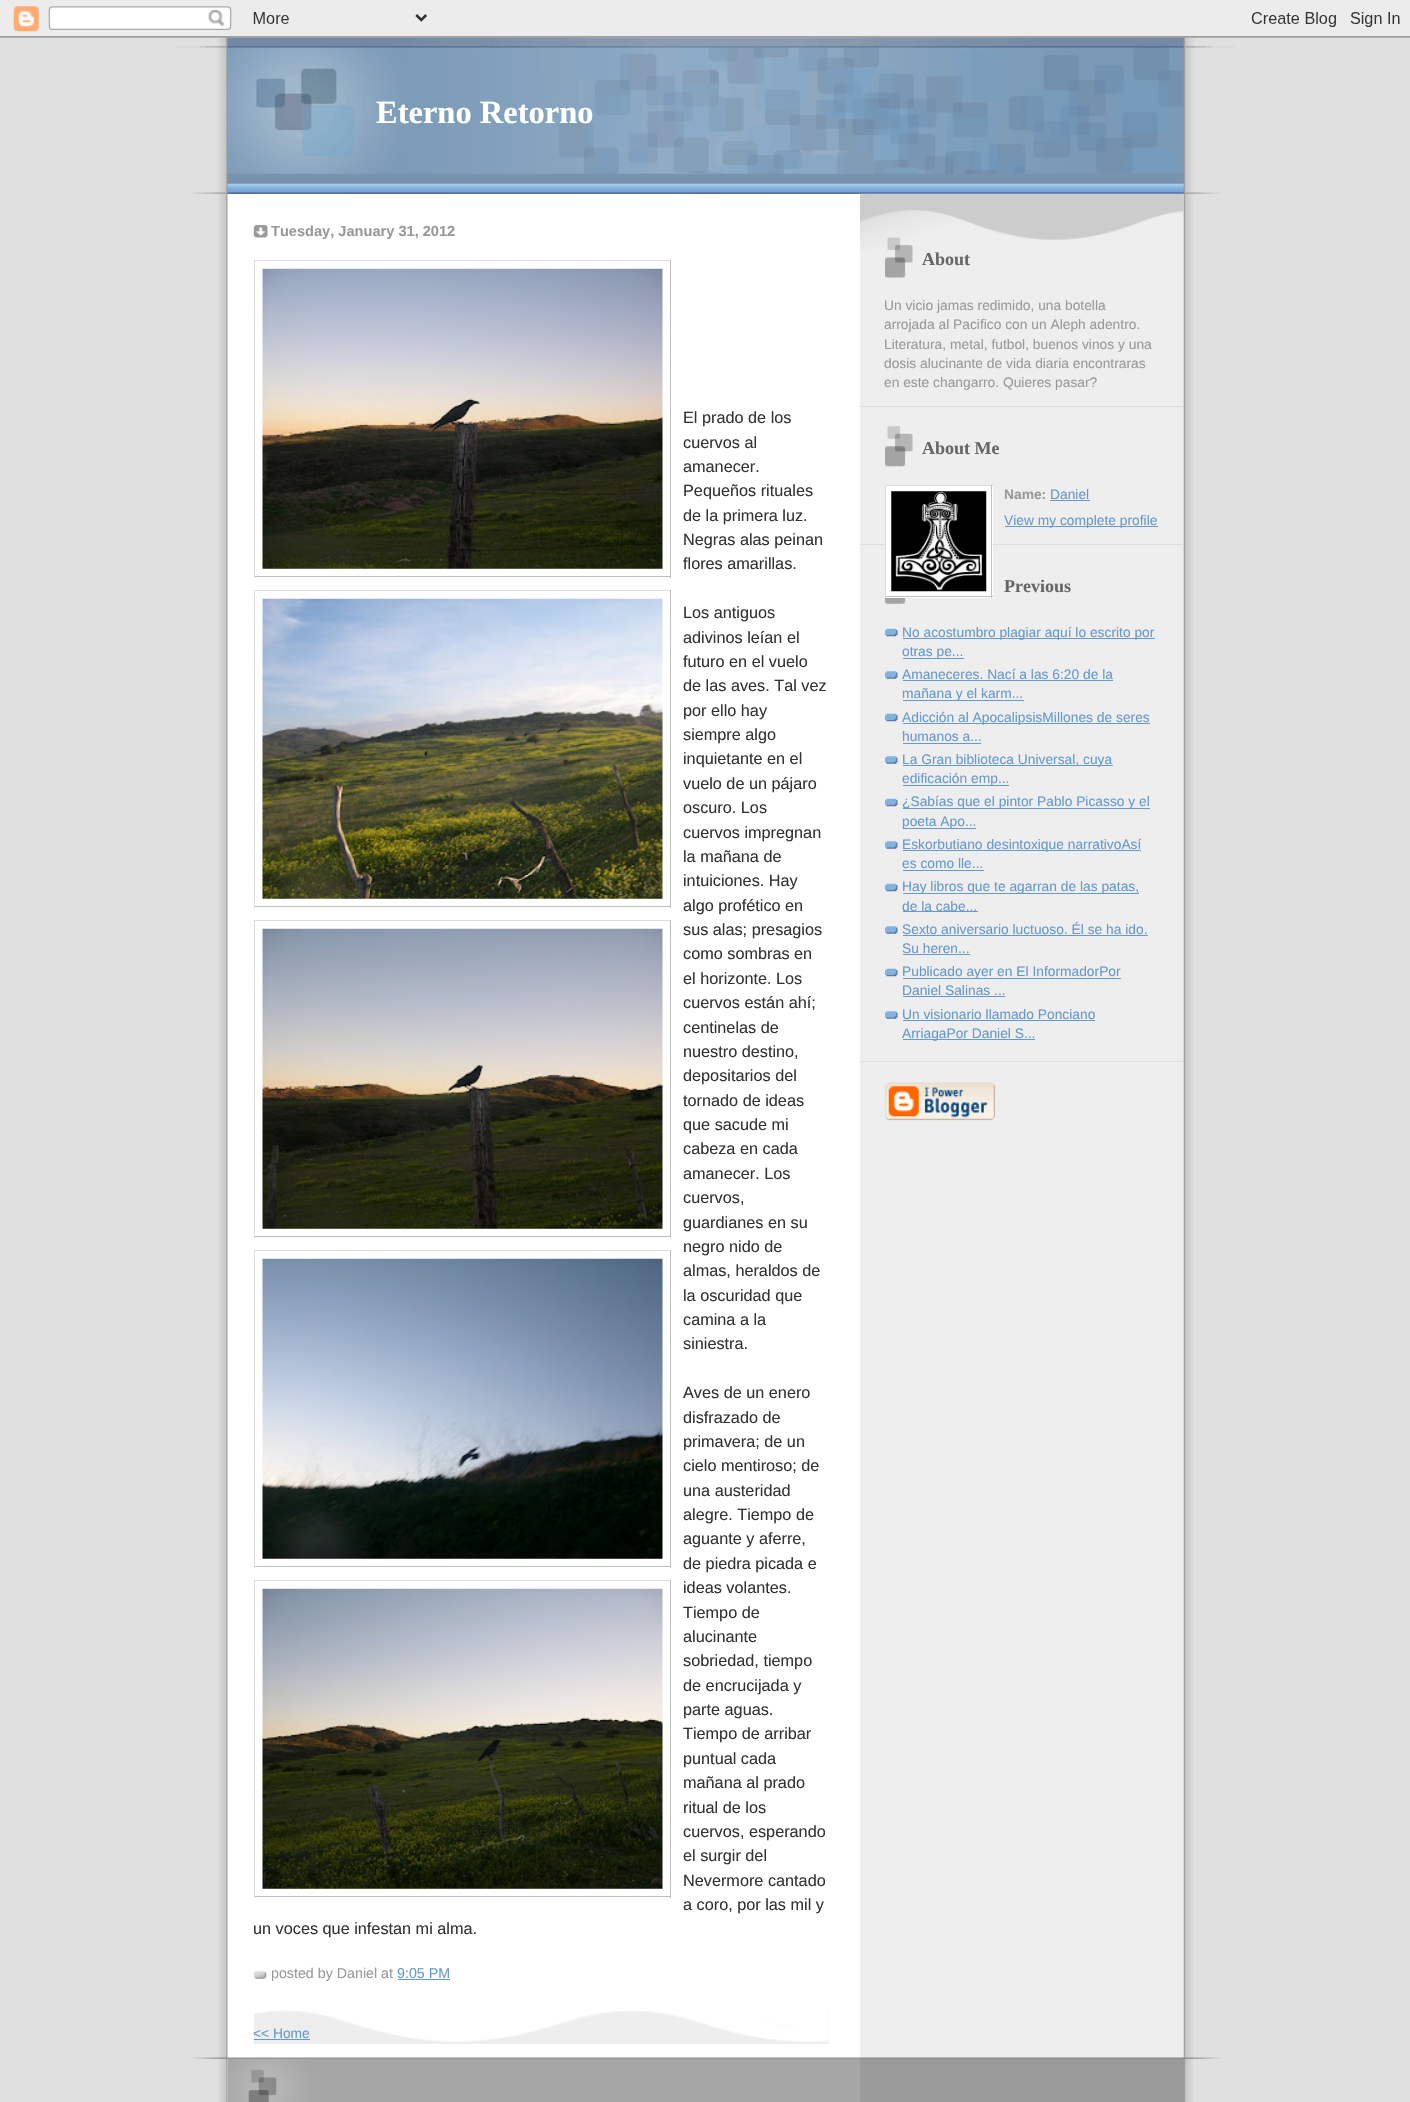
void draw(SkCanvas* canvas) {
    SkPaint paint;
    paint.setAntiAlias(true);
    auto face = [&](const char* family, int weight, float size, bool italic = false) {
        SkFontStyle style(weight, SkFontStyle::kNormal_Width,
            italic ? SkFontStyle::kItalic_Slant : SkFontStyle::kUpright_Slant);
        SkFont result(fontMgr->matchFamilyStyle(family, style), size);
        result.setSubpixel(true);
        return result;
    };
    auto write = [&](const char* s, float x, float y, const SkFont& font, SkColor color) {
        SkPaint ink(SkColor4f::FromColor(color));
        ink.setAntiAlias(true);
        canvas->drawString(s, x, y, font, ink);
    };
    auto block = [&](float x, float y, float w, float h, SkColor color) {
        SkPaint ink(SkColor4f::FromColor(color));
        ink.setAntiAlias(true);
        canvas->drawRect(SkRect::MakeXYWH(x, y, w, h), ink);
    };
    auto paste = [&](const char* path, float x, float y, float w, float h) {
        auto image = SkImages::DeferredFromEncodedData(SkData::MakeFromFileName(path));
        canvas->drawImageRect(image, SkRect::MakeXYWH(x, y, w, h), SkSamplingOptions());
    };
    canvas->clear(SkColorSetRGB(224, 224, 224));
    paste("pic2.png", 218, 37, 975, 2065);
    block(218, 38, 975, 156, SkColorSetRGB(224, 224, 224));
    paste("pic3.png", 176, 37, 1059, 157);
    paste("pic1.png", 0, 0, 1410, 38);
    paste("pic4.png", 190, 173, 1031, 21);
    auto kFont1 = face("Liberation Serif", 700, 32.5f);
    write("Eterno Retorno", 376, 123, kFont1, SK_ColorWHITE);
    paste("pic5.png", 253, 225, 15, 13);
    auto kFont2 = face("Liberation Sans", 700, 14.6f);
    write("Tuesday, January 31, 2012", 271, 236, kFont2, SkColorSetRGB(153, 153, 153));
    block(254, 260, 417, 1, SkColorSetRGB(221, 221, 221));
    block(670, 260, 1, 318, SkColorSetRGB(192, 192, 192));
    block(254, 576, 417, 1, SkColorSetRGB(192, 192, 192));
    block(254, 260, 1, 318, SkColorSetRGB(221, 221, 221));
    paste("pic6.png", 262, 268, 401, 301);
    auto kFont3 = face("Liberation Sans", 400, 16.25f);
    write("El prado de los", 683, 423, kFont3, SkColorSetRGB(51, 51, 51));
    write("cuervos al", 683, 448, kFont3, SkColorSetRGB(51, 51, 51));
    write("amanecer.", 683, 472, kFont3, SkColorSetRGB(51, 51, 51));
    write("Pequeños rituales", 683, 496, kFont3, SkColorSetRGB(51, 51, 51));
    write("de la primera luz.", 683, 521, kFont3, SkColorSetRGB(51, 51, 51));
    write("Negras alas peinan", 683, 545, kFont3, SkColorSetRGB(51, 51, 51));
    write("flores amarillas.", 683, 569, kFont3, SkColorSetRGB(51, 51, 51));
    block(254, 590, 417, 1, SkColorSetRGB(221, 221, 221));
    block(670, 590, 1, 318, SkColorSetRGB(192, 192, 192));
    block(254, 906, 417, 1, SkColorSetRGB(192, 192, 192));
    block(254, 590, 1, 318, SkColorSetRGB(221, 221, 221));
    paste("pic7.png", 262, 598, 401, 301);
    write("Los antiguos", 683, 618, kFont3, SkColorSetRGB(51, 51, 51));
    write("adivinos leían el", 683, 643, kFont3, SkColorSetRGB(51, 51, 51));
    write("futuro en el vuelo", 683, 667, kFont3, SkColorSetRGB(51, 51, 51));
    write("de las aves. Tal vez", 683, 691, kFont3, SkColorSetRGB(51, 51, 51));
    write("por ello hay", 683, 716, kFont3, SkColorSetRGB(51, 51, 51));
    write("siempre algo", 683, 740, kFont3, SkColorSetRGB(51, 51, 51));
    write("inquietante en el", 683, 764, kFont3, SkColorSetRGB(51, 51, 51));
    write("vuelo de un pájaro", 683, 789, kFont3, SkColorSetRGB(51, 51, 51));
    write("oscuro. Los", 683, 813, kFont3, SkColorSetRGB(51, 51, 51));
    write("cuervos impregnan", 683, 838, kFont3, SkColorSetRGB(51, 51, 51));
    write("la mañana de", 683, 862, kFont3, SkColorSetRGB(51, 51, 51));
    write("intuiciones. Hay", 683, 886, kFont3, SkColorSetRGB(51, 51, 51));
    write("algo profético en", 683, 911, kFont3, SkColorSetRGB(51, 51, 51));
    block(254, 920, 417, 1, SkColorSetRGB(221, 221, 221));
    block(670, 920, 1, 318, SkColorSetRGB(192, 192, 192));
    block(254, 1236, 417, 1, SkColorSetRGB(192, 192, 192));
    block(254, 920, 1, 318, SkColorSetRGB(221, 221, 221));
    paste("pic8.png", 262, 928, 401, 301);
    write("sus alas; presagios", 683, 935, kFont3, SkColorSetRGB(51, 51, 51));
    write("como sombras en", 683, 959, kFont3, SkColorSetRGB(51, 51, 51));
    write("el horizonte. Los", 683, 984, kFont3, SkColorSetRGB(51, 51, 51));
    write("cuervos están ahí;", 683, 1008, kFont3, SkColorSetRGB(51, 51, 51));
    write("centinelas de", 683, 1033, kFont3, SkColorSetRGB(51, 51, 51));
    write("nuestro destino,", 683, 1057, kFont3, SkColorSetRGB(51, 51, 51));
    write("depositarios del", 683, 1081, kFont3, SkColorSetRGB(51, 51, 51));
    write("tornado de ideas", 683, 1106, kFont3, SkColorSetRGB(51, 51, 51));
    write("que sacude mi", 683, 1130, kFont3, SkColorSetRGB(51, 51, 51));
    write("cabeza en cada", 683, 1154, kFont3, SkColorSetRGB(51, 51, 51));
    write("amanecer. Los", 683, 1179, kFont3, SkColorSetRGB(51, 51, 51));
    write("cuervos,", 683, 1203, kFont3, SkColorSetRGB(51, 51, 51));
    write("guardianes en su", 683, 1228, kFont3, SkColorSetRGB(51, 51, 51));
    write("negro nido de", 683, 1252, kFont3, SkColorSetRGB(51, 51, 51));
    block(254, 1250, 417, 1, SkColorSetRGB(221, 221, 221));
    block(670, 1250, 1, 318, SkColorSetRGB(192, 192, 192));
    block(254, 1566, 417, 1, SkColorSetRGB(192, 192, 192));
    block(254, 1250, 1, 318, SkColorSetRGB(221, 221, 221));
    paste("pic9.png", 262, 1258, 401, 301);
    write("almas, heraldos de", 683, 1276, kFont3, SkColorSetRGB(51, 51, 51));
    write("la oscuridad que", 683, 1301, kFont3, SkColorSetRGB(51, 51, 51));
    write("camina a la", 683, 1325, kFont3, SkColorSetRGB(51, 51, 51));
    write("siniestra.", 683, 1349, kFont3, SkColorSetRGB(51, 51, 51));
    write("Aves de un enero", 683, 1398, kFont3, SkColorSetRGB(51, 51, 51));
    write("disfrazado de", 683, 1423, kFont3, SkColorSetRGB(51, 51, 51));
    write("primavera; de un", 683, 1447, kFont3, SkColorSetRGB(51, 51, 51));
    write("cielo mentiroso; de", 683, 1471, kFont3, SkColorSetRGB(51, 51, 51));
    write("una austeridad", 683, 1496, kFont3, SkColorSetRGB(51, 51, 51));
    write("alegre. Tiempo de", 683, 1520, kFont3, SkColorSetRGB(51, 51, 51));
    write("aguante y aferre,", 683, 1544, kFont3, SkColorSetRGB(51, 51, 51));
    write("de piedra picada e", 683, 1569, kFont3, SkColorSetRGB(51, 51, 51));
    block(254, 1580, 417, 1, SkColorSetRGB(221, 221, 221));
    block(670, 1580, 1, 318, SkColorSetRGB(192, 192, 192));
    block(254, 1896, 417, 1, SkColorSetRGB(192, 192, 192));
    block(254, 1580, 1, 318, SkColorSetRGB(221, 221, 221));
    paste("pic10.png", 262, 1588, 401, 301);
    write("ideas volantes.", 683, 1593, kFont3, SkColorSetRGB(51, 51, 51));
    write("Tiempo de", 683, 1618, kFont3, SkColorSetRGB(51, 51, 51));
    write("alucinante", 683, 1642, kFont3, SkColorSetRGB(51, 51, 51));
    write("sobriedad, tiempo", 683, 1666, kFont3, SkColorSetRGB(51, 51, 51));
    write("de encrucijada y", 683, 1691, kFont3, SkColorSetRGB(51, 51, 51));
    write("parte aguas.", 683, 1715, kFont3, SkColorSetRGB(51, 51, 51));
    write("Tiempo de arribar", 683, 1739, kFont3, SkColorSetRGB(51, 51, 51));
    write("puntual cada", 683, 1764, kFont3, SkColorSetRGB(51, 51, 51));
    write("mañana al prado", 683, 1788, kFont3, SkColorSetRGB(51, 51, 51));
    write("ritual de los", 683, 1813, kFont3, SkColorSetRGB(51, 51, 51));
    write("cuervos, esperando", 683, 1837, kFont3, SkColorSetRGB(51, 51, 51));
    write("el surgir del", 683, 1861, kFont3, SkColorSetRGB(51, 51, 51));
    write("Nevermore cantado", 683, 1886, kFont3, SkColorSetRGB(51, 51, 51));
    write("a coro, por las mil y", 683, 1910, kFont3, SkColorSetRGB(51, 51, 51));
    write("un voces que infestan mi alma.", 253, 1934, kFont3, SkColorSetRGB(51, 51, 51));
    paste("pic11.png", 253, 1971, 14, 8);
    auto kFont4 = face("Liberation Sans", 400, 14.25f);
    write("posted by Daniel at", 271, 1978, kFont4, SkColorSetRGB(153, 153, 153));
    write("9:05 PM", 397, 1978, kFont4, SkColorSetRGB(102, 153, 204));
    block(398, 1979, 52, 1, SkColorSetRGB(102, 153, 204));
    block(254, 2010, 575, 34, SkColorSetRGB(238, 238, 238));
    paste("pic12.png", 254, 2010, 575, 32);
    auto kFont5 = face("Liberation Sans", 400, 13.8f);
    write("<< Home", 253, 2038, kFont5, SkColorSetRGB(102, 153, 204));
    block(254, 2039, 56, 1, SkColorSetRGB(102, 153, 204));
    paste("pic13.png", 860, 193, 324, 58);
    paste("pic14.png", 885, 237, 28, 41);
    auto kFont6 = face("Liberation Serif", 700, 18);
    write("About", 922, 265, kFont6, SkColorSetRGB(102, 102, 102));
    block(860, 406, 324, 1, SkColorSetRGB(221, 221, 221));
    write("Un vicio jamas redimido, una botella", 884, 310, kFont5, SkColorSetRGB(153, 153, 153));
    write("arrojada al Pacifico con un Aleph adentro.", 884, 329, kFont5, SkColorSetRGB(153, 153, 153));
    write("Literatura, metal, futbol, buenos vinos y una", 884, 349, kFont5, SkColorSetRGB(153, 153, 153));
    write("dosis alucinante de vida diaria encontraras", 884, 368, kFont5, SkColorSetRGB(153, 153, 153));
    write("en este changarro. Quieres pasar?", 884, 387, kFont5, SkColorSetRGB(153, 153, 153));
    paste("pic15.png", 885, 426, 28, 41);
    write("About Me", 922, 454, kFont6, SkColorSetRGB(102, 102, 102));
    block(860, 544, 324, 1, SkColorSetRGB(221, 221, 221));
    block(886, 486, 107, 112, SK_ColorWHITE);
    block(885, 485, 108, 1, SkColorSetRGB(221, 221, 221));
    block(991, 485, 1, 113, SkColorSetRGB(192, 192, 192));
    block(885, 596, 108, 1, SkColorSetRGB(192, 192, 192));
    block(885, 485, 1, 113, SkColorSetRGB(221, 221, 221));
    paste("pic16.png", 891, 491, 96, 101);
    auto kFont7 = face("Liberation Sans", 700, 13.8f);
    write("Name:", 1004, 499, kFont7, SkColorSetRGB(153, 153, 153));
    write("Daniel", 1050, 499, kFont5, SkColorSetRGB(102, 153, 204));
    block(1050, 500, 40, 1, SkColorSetRGB(102, 153, 204));
    block(1005, 526, 153, 1, SkColorSetRGB(102, 153, 204));
    write("View my complete profile", 1004, 525, kFont5, SkColorSetRGB(102, 153, 204));
    paste("pic17.png", 885, 598, 21, 6);
    write("Previous", 1004, 592, kFont6, SkColorSetRGB(102, 102, 102));
    block(860, 1061, 324, 1, SkColorSetRGB(221, 221, 221));
    paste("pic18.png", 885, 628, 13, 9);
    block(903, 638, 252, 1, SkColorSetRGB(102, 153, 204));
    write("No acostumbro plagiar aquí lo escrito por", 902, 637, kFont5, SkColorSetRGB(102, 153, 204));
    block(903, 658, 61, 1, SkColorSetRGB(102, 153, 204));
    write("otras pe...", 902, 656, kFont5, SkColorSetRGB(102, 153, 204));
    paste("pic19.png", 885, 671, 13, 8);
    write("Amaneceres. Nací a las 6:20 de la", 902, 679, kFont5, SkColorSetRGB(102, 153, 204));
    block(903, 680, 210, 1, SkColorSetRGB(102, 153, 204));
    block(903, 700, 121, 1, SkColorSetRGB(102, 153, 204));
    write("mañana y el karm...", 902, 698, kFont5, SkColorSetRGB(102, 153, 204));
    paste("pic18.png", 885, 713, 13, 9);
    block(903, 723, 247, 1, SkColorSetRGB(102, 153, 204));
    write("Adicción al ApocalipsisMillones de seres", 902, 722, kFont5, SkColorSetRGB(102, 153, 204));
    write("humanos a...", 902, 741, kFont5, SkColorSetRGB(102, 153, 204));
    block(903, 743, 78, 1, SkColorSetRGB(102, 153, 204));
    paste("pic19.png", 885, 756, 13, 8);
    block(903, 765, 210, 1, SkColorSetRGB(102, 153, 204));
    write("La Gran biblioteca Universal, cuya", 902, 764, kFont5, SkColorSetRGB(102, 153, 204));
    block(903, 785, 106, 1, SkColorSetRGB(102, 153, 204));
    write("edificación emp...", 902, 783, kFont5, SkColorSetRGB(102, 153, 204));
    paste("pic18.png", 885, 798, 13, 9);
    block(903, 808, 247, 1, SkColorSetRGB(102, 153, 204));
    write("¿Sabías que el pintor Pablo Picasso y el", 902, 806, kFont5, SkColorSetRGB(102, 153, 204));
    block(903, 828, 73, 1, SkColorSetRGB(102, 153, 204));
    write("poeta Apo...", 902, 826, kFont5, SkColorSetRGB(102, 153, 204));
    paste("pic19.png", 885, 841, 13, 8);
    block(903, 850, 238, 1, SkColorSetRGB(102, 153, 204));
    write("Eskorbutiano desintoxique narrativoAsí", 902, 849, kFont5, SkColorSetRGB(102, 153, 204));
    write("es como lle...", 902, 868, kFont5, SkColorSetRGB(102, 153, 204));
    block(903, 870, 81, 1, SkColorSetRGB(102, 153, 204));
    paste("pic18.png", 885, 883, 13, 9);
    block(903, 893, 236, 1, SkColorSetRGB(102, 153, 204));
    write("Hay libros que te agarran de las patas,", 902, 891, kFont5, SkColorSetRGB(102, 153, 204));
    block(903, 911, 75, 1, SkColorSetRGB(102, 153, 204));
    write("de la cabe...", 902, 911, kFont5, SkColorSetRGB(102, 153, 204));
    paste("pic19.png", 885, 926, 13, 8);
    write("Sexto aniversario luctuoso. Él se ha ido.", 902, 934, kFont5, SkColorSetRGB(102, 153, 204));
    block(903, 935, 245, 1, SkColorSetRGB(102, 153, 204));
    write("Su heren...", 902, 953, kFont5, SkColorSetRGB(102, 153, 204));
    block(903, 954, 67, 1, SkColorSetRGB(102, 153, 204));
    paste("pic18.png", 885, 968, 13, 9);
    block(903, 978, 218, 1, SkColorSetRGB(102, 153, 204));
    write("Publicado ayer en El InformadorPor", 902, 976, kFont5, SkColorSetRGB(102, 153, 204));
    write("Daniel Salinas ...", 902, 995, kFont5, SkColorSetRGB(102, 153, 204));
    block(903, 996, 102, 1, SkColorSetRGB(102, 153, 204));
    paste("pic19.png", 885, 1011, 13, 8);
    write("Un visionario llamado Ponciano", 902, 1019, kFont5, SkColorSetRGB(102, 153, 204));
    block(903, 1020, 192, 1, SkColorSetRGB(102, 153, 204));
    block(903, 1039, 132, 1, SkColorSetRGB(102, 153, 204));
    write("ArriagaPor Daniel S...", 902, 1038, kFont5, SkColorSetRGB(102, 153, 204));
    paste("pic20.png", 885, 1082, 110, 39);
    paste("pic21.png", 190, 2057, 1032, 45);
}
